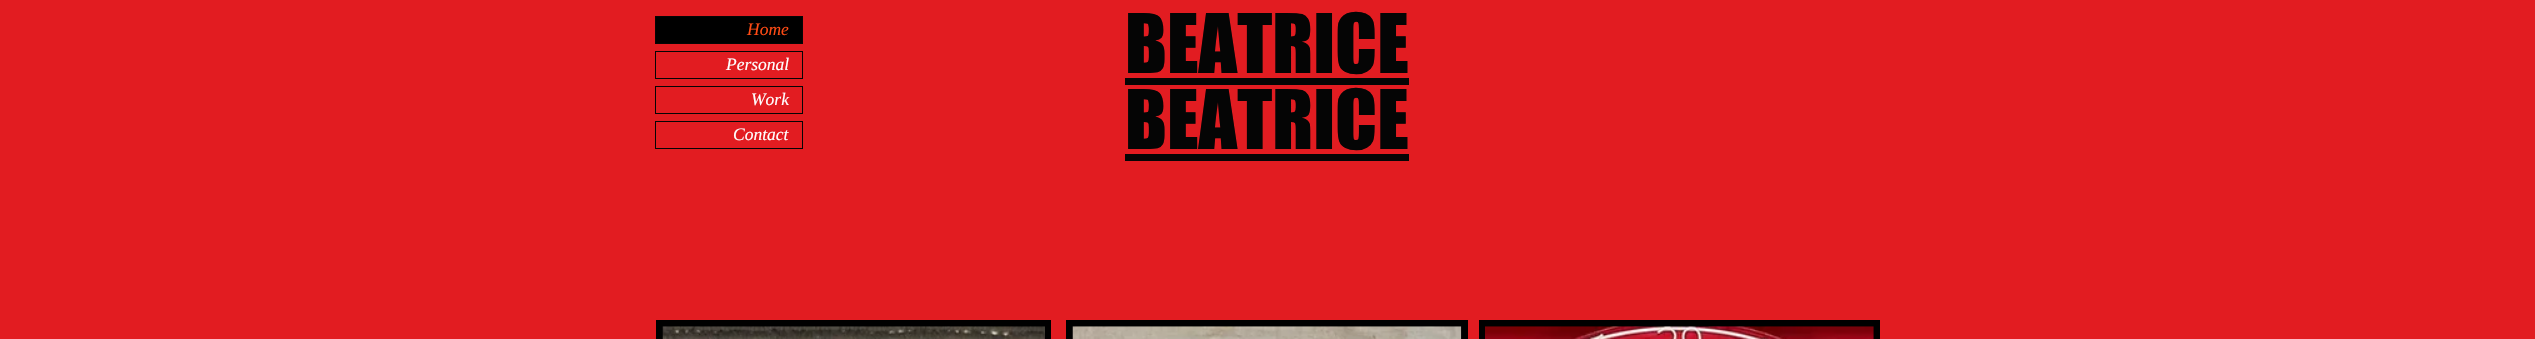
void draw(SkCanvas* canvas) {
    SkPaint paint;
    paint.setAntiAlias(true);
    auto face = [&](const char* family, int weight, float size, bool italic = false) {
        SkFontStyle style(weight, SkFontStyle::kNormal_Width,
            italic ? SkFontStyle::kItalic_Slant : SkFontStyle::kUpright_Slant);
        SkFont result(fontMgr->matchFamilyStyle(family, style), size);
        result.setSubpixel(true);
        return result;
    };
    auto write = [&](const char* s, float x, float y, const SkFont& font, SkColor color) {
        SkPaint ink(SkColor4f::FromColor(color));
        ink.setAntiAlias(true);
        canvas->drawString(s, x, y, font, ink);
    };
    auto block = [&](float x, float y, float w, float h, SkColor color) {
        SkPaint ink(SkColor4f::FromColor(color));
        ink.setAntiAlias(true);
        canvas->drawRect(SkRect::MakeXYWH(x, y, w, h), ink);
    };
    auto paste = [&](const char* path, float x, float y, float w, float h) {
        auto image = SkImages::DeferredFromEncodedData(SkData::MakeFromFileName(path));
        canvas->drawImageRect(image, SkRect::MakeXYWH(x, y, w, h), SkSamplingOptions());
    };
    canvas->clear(SkColorSetRGB(226, 28, 33));
    paint.setColor(SK_ColorBLACK);
    canvas->drawRect(SkRect::MakeXYWH(655.5f, 16.5f, 147, 27), paint);
    paint.setStyle(SkPaint::kStroke_Style);
    paint.setStrokeWidth(1);
    paint.setColor(SkColorSetRGB(5, 5, 5));
    canvas->drawRect(SkRect::MakeXYWH(655.5f, 16.5f, 147, 27), paint);
    auto kFont1 = face("Liberation Serif", 400, 17.5f, true);
    write("Home", 747, 35, kFont1, SkColorSetRGB(255, 75, 20));
    canvas->drawRect(SkRect::MakeXYWH(655.5f, 51.5f, 147, 27), paint);
    write("Personal", 726, 70, kFont1, SK_ColorWHITE);
    canvas->drawRect(SkRect::MakeXYWH(655.5f, 86.5f, 147, 27), paint);
    write("Work", 751, 105, kFont1, SK_ColorWHITE);
    canvas->drawRect(SkRect::MakeXYWH(655.5f, 121.5f, 147, 27), paint);
    write("Contact", 733, 140, kFont1, SK_ColorWHITE);
    auto kFont2 = face("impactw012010", 400, 76);
    write("BEATRICE", 1125, 73, kFont2, SkColorSetRGB(5, 5, 5));
    write("BEATRICE", 1125, 149, kFont2, SkColorSetRGB(5, 5, 5));
    block(1125, 78, 284, 7, SkColorSetRGB(5, 5, 5));
    block(1125, 154, 284, 7, SkColorSetRGB(5, 5, 5));
    block(656, 320, 395, 19, SK_ColorBLACK);
    paste("pic1.png", 662, 326, 383, 13);
    block(1066, 320, 402, 19, SK_ColorBLACK);
    paste("pic2.png", 1072, 326, 390, 13);
    block(1479, 320, 401, 19, SK_ColorBLACK);
    paste("pic3.png", 1485, 326, 389, 13);
}
